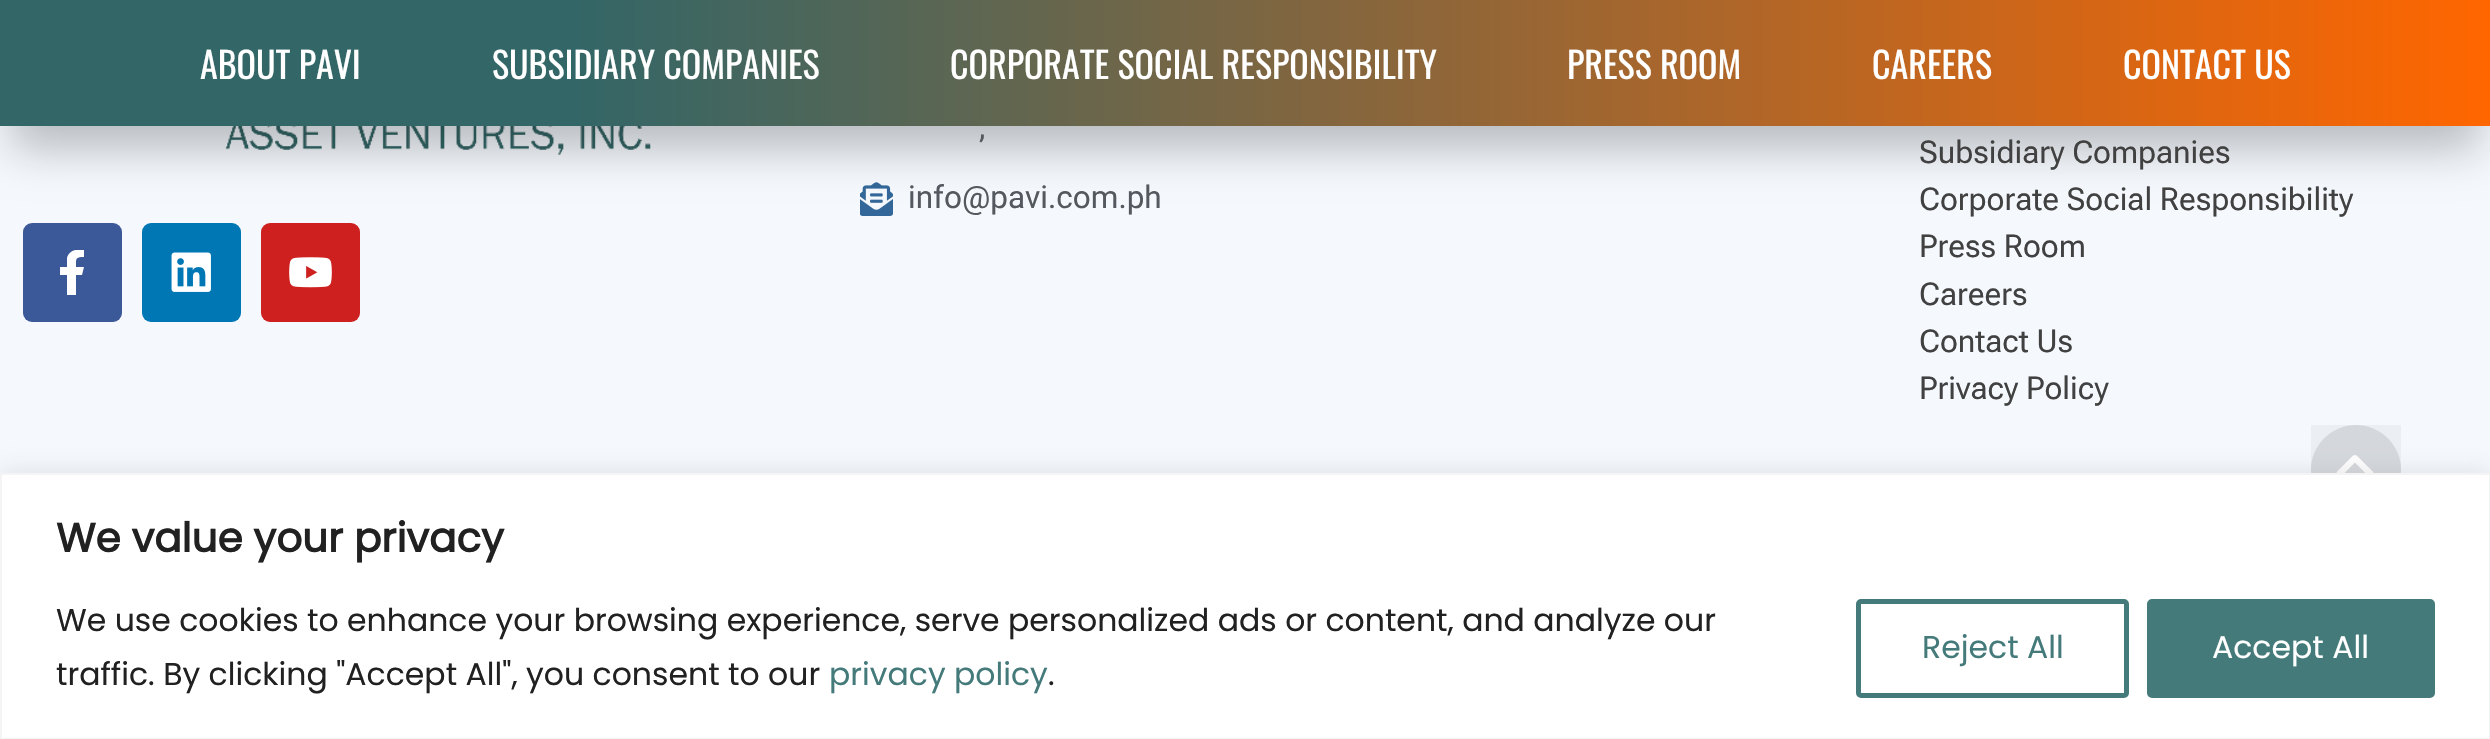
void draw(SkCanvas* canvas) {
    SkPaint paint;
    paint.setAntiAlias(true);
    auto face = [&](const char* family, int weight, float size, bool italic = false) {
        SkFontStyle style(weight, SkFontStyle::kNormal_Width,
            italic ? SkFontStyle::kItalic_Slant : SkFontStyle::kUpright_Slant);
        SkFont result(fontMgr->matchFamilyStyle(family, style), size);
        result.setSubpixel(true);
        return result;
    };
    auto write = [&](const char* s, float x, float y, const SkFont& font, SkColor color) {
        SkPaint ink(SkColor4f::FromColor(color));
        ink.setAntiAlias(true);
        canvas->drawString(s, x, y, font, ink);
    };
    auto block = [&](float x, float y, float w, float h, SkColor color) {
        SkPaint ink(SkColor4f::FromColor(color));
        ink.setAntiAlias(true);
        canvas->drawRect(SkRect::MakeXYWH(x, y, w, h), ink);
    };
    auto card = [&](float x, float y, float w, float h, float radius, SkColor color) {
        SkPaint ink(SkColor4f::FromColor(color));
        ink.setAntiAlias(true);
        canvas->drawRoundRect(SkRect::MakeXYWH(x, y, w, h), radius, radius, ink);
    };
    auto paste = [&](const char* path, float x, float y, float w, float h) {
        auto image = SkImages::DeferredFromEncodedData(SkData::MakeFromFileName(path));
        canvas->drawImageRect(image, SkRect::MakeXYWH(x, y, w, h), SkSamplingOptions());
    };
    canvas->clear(SkColorSetRGB(245, 249, 254));
    paste("pic1.png", 225, 126, 426, 29);
    paste("pic4.png", 860, 182, 33, 34);
    paint.setColor(SkColorSetARGB(64, 0, 0, 0));
    paint.setMaskFilter(SkMaskFilter::MakeBlur(kNormal_SkBlurStyle, 22.5f));
    canvas->drawRect(SkRect::MakeXYWH(11, 45, 2469, 104), paint);
    paint.setMaskFilter(nullptr);
    {
        const SkColor colors[] = {SkColorSetRGB(51, 102, 103), SkColorSetRGB(255, 102, 0)};
        const float stops[] = {0.23f, 1};
        const SkPoint ends[] = {{0, 63}, {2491, 63}};
        paint.setShader(SkGradientShader::MakeLinear(ends, colors, stops, 2, SkTileMode::kClamp));
        paint.setAlpha(255);
    }
    canvas->drawRect(SkRect::MakeXYWH(0, 0, 2490, 126), paint);
    auto kFont1 = face("Oswald", 400, 36);
    write("ABOUT PAVI", 200, 79, kFont1, SK_ColorWHITE);
    write("SUBSIDIARY COMPANIES", 492, 79, kFont1, SK_ColorWHITE);
    write("CORPORATE SOCIAL RESPONSIBILITY", 950, 79, kFont1, SK_ColorWHITE);
    write("PRESS ROOM", 1567, 79, kFont1, SK_ColorWHITE);
    write("CAREERS", 1872, 79, kFont1, SK_ColorWHITE);
    write("CONTACT US", 2123, 79, kFont1, SK_ColorWHITE);
    card(23, 223, 99, 99, 9, SkColorSetRGB(59, 89, 152));
    canvas->save();
    canvas->clipRect(SkRect::MakeXYWH(50, 250, 45, 45));
    paint.setShader(nullptr);
    paint.setColor(SK_ColorWHITE);
    canvas->drawPath(SkPathBuilder().moveTo(82, 275).lineTo(84, 267).lineTo(76, 267).cubicTo(76, 259, 75, 257, 84, 257).lineTo(84, 250).cubicTo(77, 249, 69, 250, 67, 258).lineTo(67, 267).lineTo(60, 267).lineTo(60, 275).lineTo(67, 275).lineTo(67, 295).lineTo(76, 295).lineTo(76, 275).close().detach(), paint);
    canvas->restore();
    card(142, 223, 99, 99, 9, SkColorSetRGB(0, 119, 181));
    paste("pic2.png", 171, 252, 40, 40);
    card(261, 223, 99, 99, 9, SkColorSetRGB(205, 32, 31));
    paste("pic3.png", 289, 257, 43, 31);
    auto kFont2 = face("Roboto", 400, 31.5f);
    write(",", 979, 138, kFont2, SkColorSetRGB(84, 89, 95));
    write("info@pavi.com.ph", 908, 208, kFont2, SkColorSetRGB(84, 89, 95));
    auto kFont3 = face("Roboto Flex", 400, 31.5f);
    write("Subsidiary Companies", 1919, 163, kFont3, SkColorSetRGB(65, 65, 65));
    write("Corporate Social Responsibility", 1919, 210, kFont3, SkColorSetRGB(65, 65, 65));
    write("Press Room", 1919, 257, kFont3, SkColorSetRGB(65, 65, 65));
    write("Careers", 1919, 305, kFont3, SkColorSetRGB(65, 65, 65));
    write("Contact Us", 1919, 352, kFont3, SkColorSetRGB(65, 65, 65));
    write("Privacy Policy", 1919, 399, kFont3, SkColorSetRGB(65, 65, 65));
    paint.setColor(SkColorSetRGB(221, 224, 229));
    canvas->drawCircle(2356, 470, 45, paint);
    block(2311, 425, 90, 48, SkColorSetARGB(10, 0, 0, 0));
    paste("pic5.png", 2336, 455, 38, 18);
    paint.setColor(SkColorSetARGB(77, 172, 171, 171));
    paint.setMaskFilter(SkMaskFilter::MakeBlur(kNormal_SkBlurStyle, 11));
    canvas->drawRect(SkRect::MakeXYWH(0, 470, 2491, 268), paint);
    paint.setMaskFilter(nullptr);
    paint.setColor(SK_ColorWHITE);
    canvas->drawRect(SkRect::MakeXYWH(1, 474, 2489, 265), paint);
    paint.setStyle(SkPaint::kStroke_Style);
    paint.setStrokeWidth(2);
    paint.setColor(SkColorSetRGB(244, 244, 244));
    canvas->drawRect(SkRect::MakeXYWH(1, 474, 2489, 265), paint);
    auto kFont4 = face("Poppins", 700, 40.5f);
    write("We value your privacy", 56, 552, kFont4, SkColorSetRGB(33, 33, 33));
    auto kFont5 = face("Poppins", 400, 31.5f);
    write("We use cookies to enhance your browsing experience, serve personalized ads or content, and analyze our", 56, 631, kFont5, SkColorSetRGB(33, 33, 33));
    write("traffic. By clicking \"Accept All\", you consent to our", 56, 685, kFont5, SkColorSetRGB(33, 33, 33));
    write("privacy policy", 829, 685, kFont5, SkColorSetRGB(69, 122, 123));
    write(".", 1048, 685, kFont5, SkColorSetRGB(33, 33, 33));
    paint.setStrokeWidth(5);
    paint.setColor(SkColorSetRGB(69, 122, 123));
    canvas->drawRoundRect(SkRect::MakeXYWH(1858.5f, 601.5f, 268, 94), 2.5f, 2.5f, paint);
    write("Reject All", 1922, 658, kFont5, SkColorSetRGB(69, 122, 123));
    paint.setStyle(SkPaint::kFill_Style);
    canvas->drawRoundRect(SkRect::MakeXYWH(2149.5f, 601.5f, 283, 94), 2.5f, 2.5f, paint);
    paint.setStyle(SkPaint::kStroke_Style);
    canvas->drawRoundRect(SkRect::MakeXYWH(2149.5f, 601.5f, 283, 94), 2.5f, 2.5f, paint);
    write("Accept All", 2212, 658, kFont5, SK_ColorWHITE);
}
